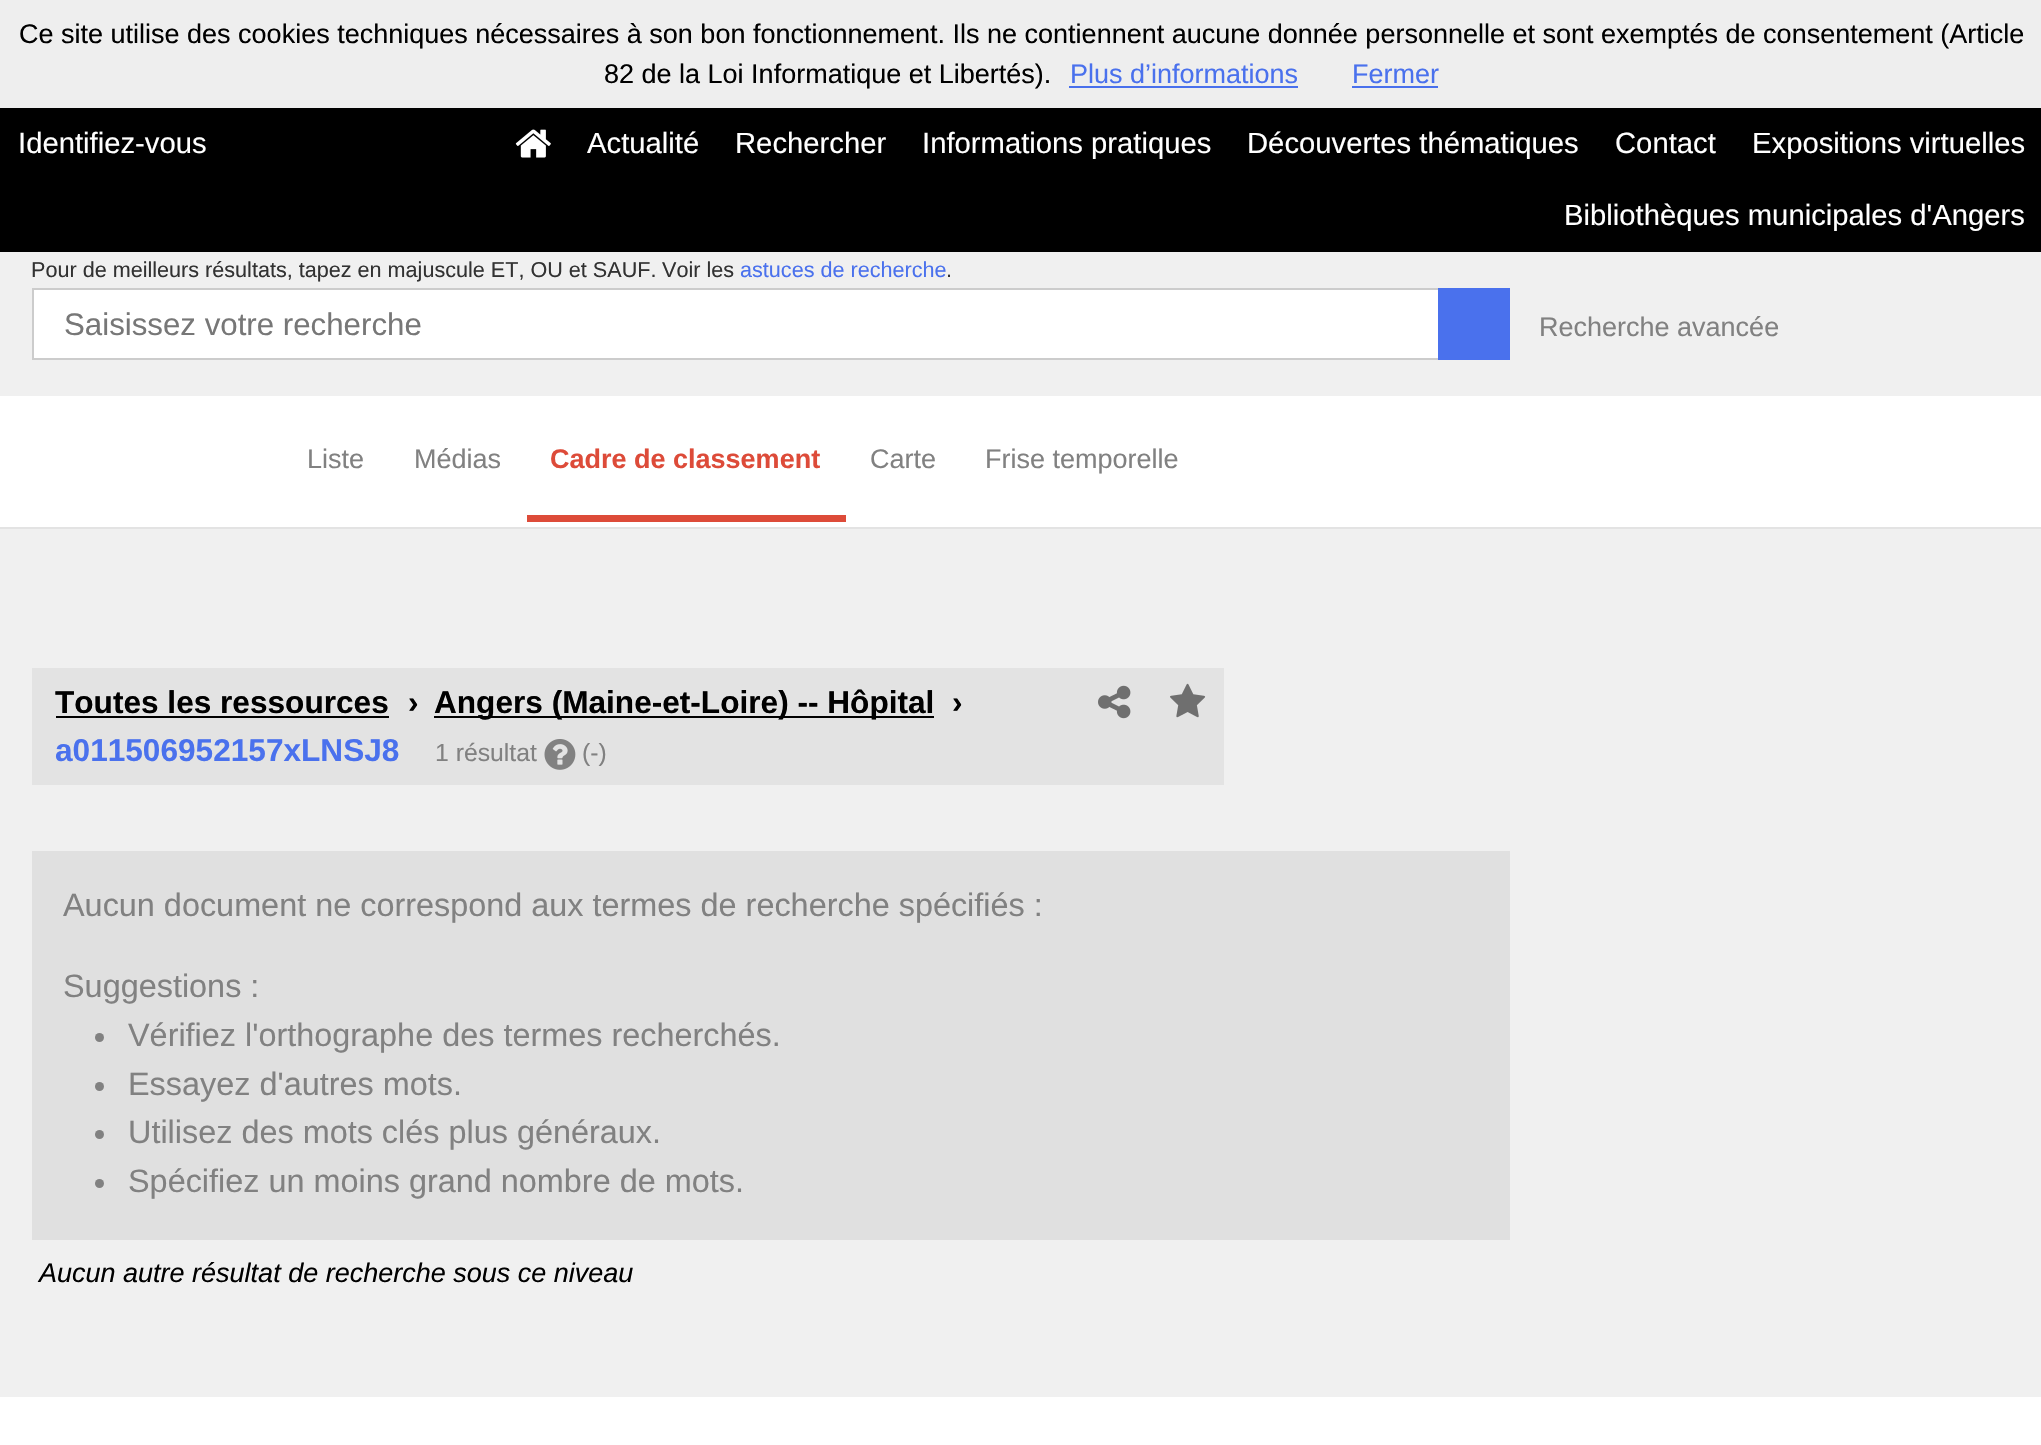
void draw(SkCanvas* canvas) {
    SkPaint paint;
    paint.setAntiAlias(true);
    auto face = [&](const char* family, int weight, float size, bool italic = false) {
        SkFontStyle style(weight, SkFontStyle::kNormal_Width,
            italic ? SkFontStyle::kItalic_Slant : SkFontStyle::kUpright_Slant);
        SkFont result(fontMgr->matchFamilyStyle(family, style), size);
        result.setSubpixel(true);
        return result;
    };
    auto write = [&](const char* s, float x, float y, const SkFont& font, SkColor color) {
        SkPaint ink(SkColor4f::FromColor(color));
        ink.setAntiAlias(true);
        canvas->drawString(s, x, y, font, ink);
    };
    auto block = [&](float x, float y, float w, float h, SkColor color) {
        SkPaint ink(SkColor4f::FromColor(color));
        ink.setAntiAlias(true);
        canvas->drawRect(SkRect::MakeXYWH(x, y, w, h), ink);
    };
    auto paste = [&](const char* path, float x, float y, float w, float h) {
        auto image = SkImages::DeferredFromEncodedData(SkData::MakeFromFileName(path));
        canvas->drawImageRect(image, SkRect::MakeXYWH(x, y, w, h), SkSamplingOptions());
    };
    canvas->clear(SK_ColorWHITE);
    block(0, 0, 2041, 108, SkColorSetRGB(238, 238, 238));
    auto kFont1 = face("Liberation Sans", 400, 27);
    write("Ce site utilise des cookies techniques nécessaires à son bon fonctionnement. Ils ne contiennent aucune donnée personnelle et sont exemptés de consentement (Article", 19, 43, kFont1, SK_ColorBLACK);
    write("82 de la Loi Informatique et Libertés).", 604, 83, kFont1, SK_ColorBLACK);
    write("Plus d’informations", 1070, 83, kFont1, SkColorSetRGB(74, 113, 237));
    block(1069, 86, 229, 2, SkColorSetRGB(73, 112, 236));
    write("Fermer", 1352, 83, kFont1, SkColorSetRGB(74, 113, 237));
    block(1352, 86, 86, 2, SkColorSetRGB(73, 112, 236));
    block(0, 108, 2041, 144, SK_ColorBLACK);
    auto kFont2 = face("Liberation Sans", 400, 29.25f);
    write("Identifiez-vous", 18, 153, kFont2, SK_ColorWHITE);
    paste("pic1.png", 515, 129, 36, 29);
    write("Actualité", 587, 153, kFont2, SK_ColorWHITE);
    write("Rechercher", 735, 153, kFont2, SK_ColorWHITE);
    write("Informations pratiques", 922, 153, kFont2, SK_ColorWHITE);
    write("Découvertes thématiques", 1247, 153, kFont2, SK_ColorWHITE);
    write("Contact", 1615, 153, kFont2, SK_ColorWHITE);
    write("Expositions virtuelles", 1752, 153, kFont2, SK_ColorWHITE);
    write("Bibliothèques municipales d'Angers", 1564, 225, kFont2, SK_ColorWHITE);
    block(0, 252, 2041, 144, SkColorSetRGB(240, 240, 240));
    auto kFont3 = face("Liberation Sans", 400, 21.6f);
    write("Pour de meilleurs résultats, tapez en majuscule ET, OU et SAUF.", 31, 277, kFont3, SkColorSetRGB(50, 50, 50));
    write("Voir les", 662, 277, kFont3, SkColorSetRGB(50, 50, 50));
    write("astuces de recherche", 740, 277, kFont3, SkColorSetRGB(74, 113, 237));
    write(".", 946, 277, kFont3, SkColorSetRGB(50, 50, 50));
    block(34, 290, 1404, 68, SK_ColorWHITE);
    paint.setStyle(SkPaint::kStroke_Style);
    paint.setStrokeWidth(2);
    paint.setColor(SkColorSetRGB(204, 204, 204));
    canvas->drawRect(SkRect::MakeXYWH(33, 289, 1476, 70), paint);
    auto kFont4 = face("Liberation Sans", 400, 31.25f);
    write("Saisissez votre recherche", 64, 335, kFont4, SkColorSetRGB(119, 119, 119));
    block(1438, 288, 72, 72, SkColorSetRGB(74, 113, 237));
    write("Recherche avancée", 1539, 336, kFont1, SkColorSetRGB(129, 129, 129));
    block(0, 527, 2041, 2, SkColorSetRGB(227, 227, 227));
    write("Liste", 307, 468, kFont1, SkColorSetRGB(129, 129, 129));
    write("Médias", 414, 468, kFont1, SkColorSetRGB(129, 129, 129));
    block(527, 515, 319, 7, SkColorSetRGB(221, 75, 57));
    auto kFont5 = face("Liberation Sans", 700, 27);
    write("Cadre de classement", 550, 468, kFont5, SkColorSetRGB(221, 75, 57));
    write("Carte", 870, 468, kFont1, SkColorSetRGB(129, 129, 129));
    write("Frise temporelle", 985, 468, kFont1, SkColorSetRGB(129, 129, 129));
    block(0, 529, 2041, 868, SkColorSetRGB(240, 240, 240));
    block(32, 668, 1192, 117, SkColorSetRGB(227, 227, 227));
    auto kFont6 = face("Liberation Sans", 700, 31.6f);
    write("Toutes les ressources", 55, 713, kFont6, SK_ColorBLACK);
    block(56, 716, 333, 2, SK_ColorBLACK);
    write("›", 408, 713, kFont6, SK_ColorBLACK);
    block(434, 716, 500, 2, SK_ColorBLACK);
    write("Angers (Maine-et-Loire) -- Hôpital", 434, 713, kFont6, SK_ColorBLACK);
    write("›", 952, 713, kFont6, SK_ColorBLACK);
    write("a011506952157xLNSJ8", 55, 761, kFont6, SkColorSetRGB(74, 113, 237));
    auto kFont7 = face("Liberation Sans", 400, 24.75f);
    write("1 résultat", 435, 761, kFont7, SkColorSetRGB(129, 129, 129));
    paste("pic2.png", 544, 739, 32, 31);
    write("(-)", 582, 761, kFont7, SkColorSetRGB(129, 129, 129));
    paste("pic3.png", 1098, 685, 33, 34);
    paste("pic4.png", 1170, 683, 36, 35);
    block(32, 851, 1478, 389, SkColorSetRGB(224, 224, 224));
    auto kFont8 = face("Liberation Sans", 400, 32.4f);
    write("Aucun document ne correspond aux termes de recherche spécifiés :", 63, 916, kFont8, SkColorSetRGB(129, 129, 129));
    write("Suggestions :", 63, 997, kFont8, SkColorSetRGB(129, 129, 129));
    paint.setStyle(SkPaint::kFill_Style);
    paint.setColor(SkColorSetRGB(129, 129, 129));
    canvas->drawCircle(99.5f, 1037.5f, 4.5f, paint);
    write("Vérifiez l'orthographe des termes recherchés.", 128, 1046, kFont8, SkColorSetRGB(129, 129, 129));
    canvas->drawCircle(99.5f, 1086.5f, 4.5f, paint);
    write("Essayez d'autres mots.", 128, 1095, kFont8, SkColorSetRGB(129, 129, 129));
    canvas->drawCircle(99.5f, 1134.5f, 4.5f, paint);
    write("Utilisez des mots clés plus généraux.", 128, 1143, kFont8, SkColorSetRGB(129, 129, 129));
    canvas->drawCircle(99.5f, 1183.5f, 4.5f, paint);
    write("Spécifiez un moins grand nombre de mots.", 128, 1192, kFont8, SkColorSetRGB(129, 129, 129));
    auto kFont9 = face("Liberation Sans", 400, 27, true);
    write("Aucun autre résultat de recherche sous ce niveau", 39, 1282, kFont9, SK_ColorBLACK);
}
